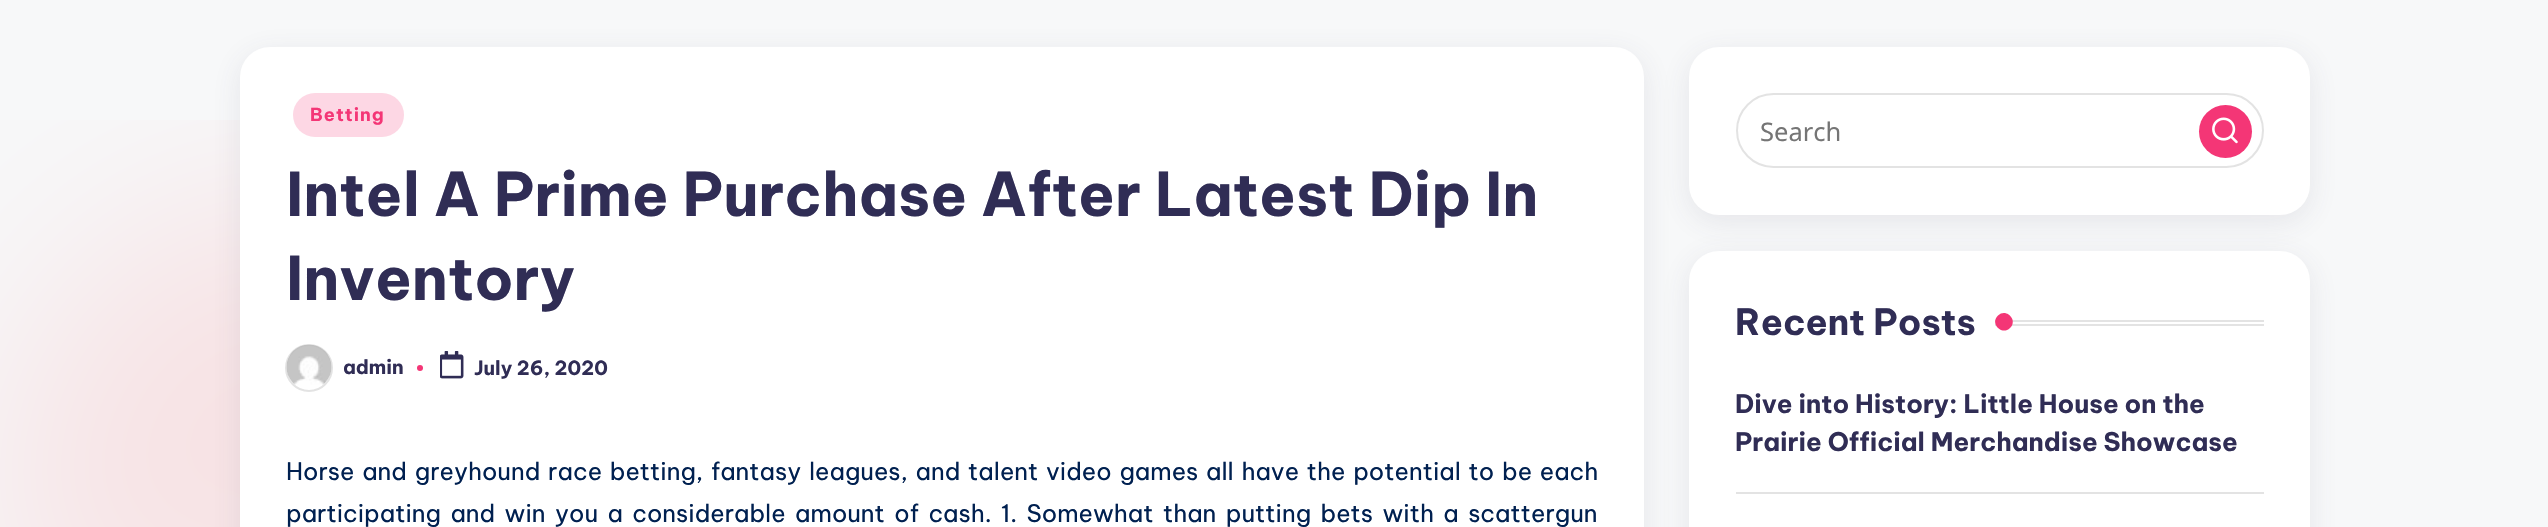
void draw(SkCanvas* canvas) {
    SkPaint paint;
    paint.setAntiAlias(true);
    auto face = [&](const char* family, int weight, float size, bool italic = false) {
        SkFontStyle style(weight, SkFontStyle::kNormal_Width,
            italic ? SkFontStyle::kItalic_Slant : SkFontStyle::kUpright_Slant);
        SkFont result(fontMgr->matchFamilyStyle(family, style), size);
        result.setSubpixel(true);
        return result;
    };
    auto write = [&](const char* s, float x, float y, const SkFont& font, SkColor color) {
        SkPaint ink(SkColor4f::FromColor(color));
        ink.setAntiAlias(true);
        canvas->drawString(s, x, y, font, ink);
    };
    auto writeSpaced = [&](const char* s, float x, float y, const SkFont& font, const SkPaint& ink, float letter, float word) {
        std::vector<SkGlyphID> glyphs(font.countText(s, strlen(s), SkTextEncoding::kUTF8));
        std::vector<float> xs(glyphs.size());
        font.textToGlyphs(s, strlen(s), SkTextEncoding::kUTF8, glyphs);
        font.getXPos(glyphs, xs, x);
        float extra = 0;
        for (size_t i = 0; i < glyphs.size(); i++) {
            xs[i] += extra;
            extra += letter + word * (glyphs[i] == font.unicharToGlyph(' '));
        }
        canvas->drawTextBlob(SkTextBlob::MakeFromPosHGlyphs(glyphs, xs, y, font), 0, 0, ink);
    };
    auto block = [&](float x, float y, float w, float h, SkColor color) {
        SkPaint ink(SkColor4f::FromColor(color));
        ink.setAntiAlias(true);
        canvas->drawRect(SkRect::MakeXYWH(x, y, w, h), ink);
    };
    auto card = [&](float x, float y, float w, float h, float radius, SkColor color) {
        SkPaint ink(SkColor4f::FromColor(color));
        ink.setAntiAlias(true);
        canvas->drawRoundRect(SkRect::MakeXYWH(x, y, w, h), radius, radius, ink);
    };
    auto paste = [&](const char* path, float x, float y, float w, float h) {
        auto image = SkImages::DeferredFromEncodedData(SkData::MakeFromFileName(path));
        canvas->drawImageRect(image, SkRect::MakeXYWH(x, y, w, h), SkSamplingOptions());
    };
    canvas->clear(SkColorSetRGB(247, 248, 249));
    canvas->save();
    canvas->clipRect(SkRect::MakeXYWH(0, 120, 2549, 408));
    paint.setColor(SkColorSetRGB(247, 227, 229));
    paint.setMaskFilter(SkMaskFilter::MakeBlur(kNormal_SkBlurStyle, 96));
    canvas->drawRoundRect(SkRect::MakeXYWH(0, 195, 576, 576), 288, 288, paint);
    paint.setMaskFilter(nullptr);
    canvas->restore();
    paint.setColor(SkColorSetARGB(26, 69, 67, 96));
    paint.setMaskFilter(SkMaskFilter::MakeBlur(kNormal_SkBlurStyle, 15));
    canvas->drawRoundRect(SkRect::MakeXYWH(240, 54, 1404, 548), 30, 30, paint);
    paint.setMaskFilter(nullptr);
    card(240, 47, 1404, 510, 30, SK_ColorWHITE);
    card(293, 93, 111, 44, 22, SkColorSetRGB(253, 215, 228));
    auto kFont1 = face("Be Vietnam Pro", 700, 18);
    paint.setColor(SkColorSetRGB(244, 54, 118));
    writeSpaced("Betting", 310, 121, kFont1, paint, 1, 0);
    auto kFont2 = face("Be Vietnam Pro", 700, 60);
    write("Intel A Prime Purchase After Latest Dip In", 286, 216, kFont2, SkColorSetRGB(48, 45, 85));
    write("Inventory", 286, 300, kFont2, SkColorSetRGB(48, 45, 85));
    paste("pic1.png", 286, 344, 46, 41);
    paint.setStyle(SkPaint::kStroke_Style);
    paint.setStrokeWidth(2);
    paint.setColor(SkColorSetARGB(102, 185, 185, 185));
    canvas->drawCircle(309, 368, 23, paint);
    auto kFont3 = face("Be Vietnam Pro", 700, 19.5f);
    write("admin", 343, 374, kFont3, SkColorSetRGB(48, 45, 85));
    paint.setStyle(SkPaint::kFill_Style);
    paint.setColor(SkColorSetRGB(244, 54, 118));
    canvas->drawCircle(420, 368, 3, paint);
    paste("pic2.png", 440, 351, 24, 28);
    write("July 26, 2020", 474, 375, kFont3, SkColorSetRGB(48, 45, 85));
    auto kFont4 = face("Be Vietnam Pro", 400, 24);
    paint.setColor(SkColorSetRGB(0, 32, 80));
    writeSpaced("Horse and greyhound race betting, fantasy leagues, and talent video games all have the potential to be each", 286, 480, kFont4, paint, 0, 2.25f);
    writeSpaced("participating and win you a considerable amount of cash. 1. Somewhat than putting bets with a scattergun", 286, 522, kFont4, paint, 0, 3.9f);
    paint.setColor(SkColorSetARGB(26, 69, 67, 96));
    paint.setMaskFilter(SkMaskFilter::MakeBlur(kNormal_SkBlurStyle, 15));
    canvas->drawRoundRect(SkRect::MakeXYWH(1689, 54, 621, 168), 30, 30, paint);
    paint.setMaskFilter(nullptr);
    card(1689, 47, 621, 168, 30, SK_ColorWHITE);
    paint.setStyle(SkPaint::kStroke_Style);
    paint.setColor(SkColorSetRGB(227, 227, 227));
    canvas->drawRoundRect(SkRect::MakeXYWH(1737, 94, 526, 73), 36.5f, 36.5f, paint);
    auto kFont5 = face("Noto Sans", 400, 25.5f);
    write("Search", 1760, 141, kFont5, SkColorSetRGB(117, 117, 117));
    paint.setStyle(SkPaint::kFill_Style);
    paint.setColor(SkColorSetRGB(244, 54, 118));
    canvas->drawCircle(2225.5f, 131.5f, 26.5f, paint);
    paste("pic3.png", 2212, 117, 26, 27);
    paint.setColor(SkColorSetARGB(26, 69, 67, 96));
    paint.setMaskFilter(SkMaskFilter::MakeBlur(kNormal_SkBlurStyle, 15));
    canvas->drawRoundRect(SkRect::MakeXYWH(1689, 258, 621, 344), 30, 30, paint);
    paint.setMaskFilter(nullptr);
    card(1689, 251, 621, 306, 30, SK_ColorWHITE);
    auto kFont6 = face("Be Vietnam Pro", 700, 36);
    write("Recent Posts", 1735, 335, kFont6, SkColorSetRGB(48, 45, 85));
    block(1995, 320, 269, 2, SkColorSetRGB(227, 227, 227));
    block(1995, 324, 269, 2, SkColorSetRGB(227, 227, 227));
    paint.setColor(SkColorSetRGB(244, 54, 118));
    canvas->drawPath(SkPathBuilder().moveTo(1998, 315.5f).cubicTo(2006, 307.5f, 2018.5f, 320, 2010, 328).cubicTo(2002, 336, 1989.5f, 323.5f, 1998, 315.5f).close().detach(), paint);
    auto kFont7 = face("Be Vietnam Pro", 700, 25.5f);
    write("Dive into History: Little House on the", 1735, 413, kFont7, SkColorSetRGB(48, 45, 85));
    write("Prairie Official Merchandise Showcase", 1735, 451, kFont7, SkColorSetRGB(48, 45, 85));
    block(1736, 492, 528, 2, SkColorSetRGB(227, 227, 227));
}
